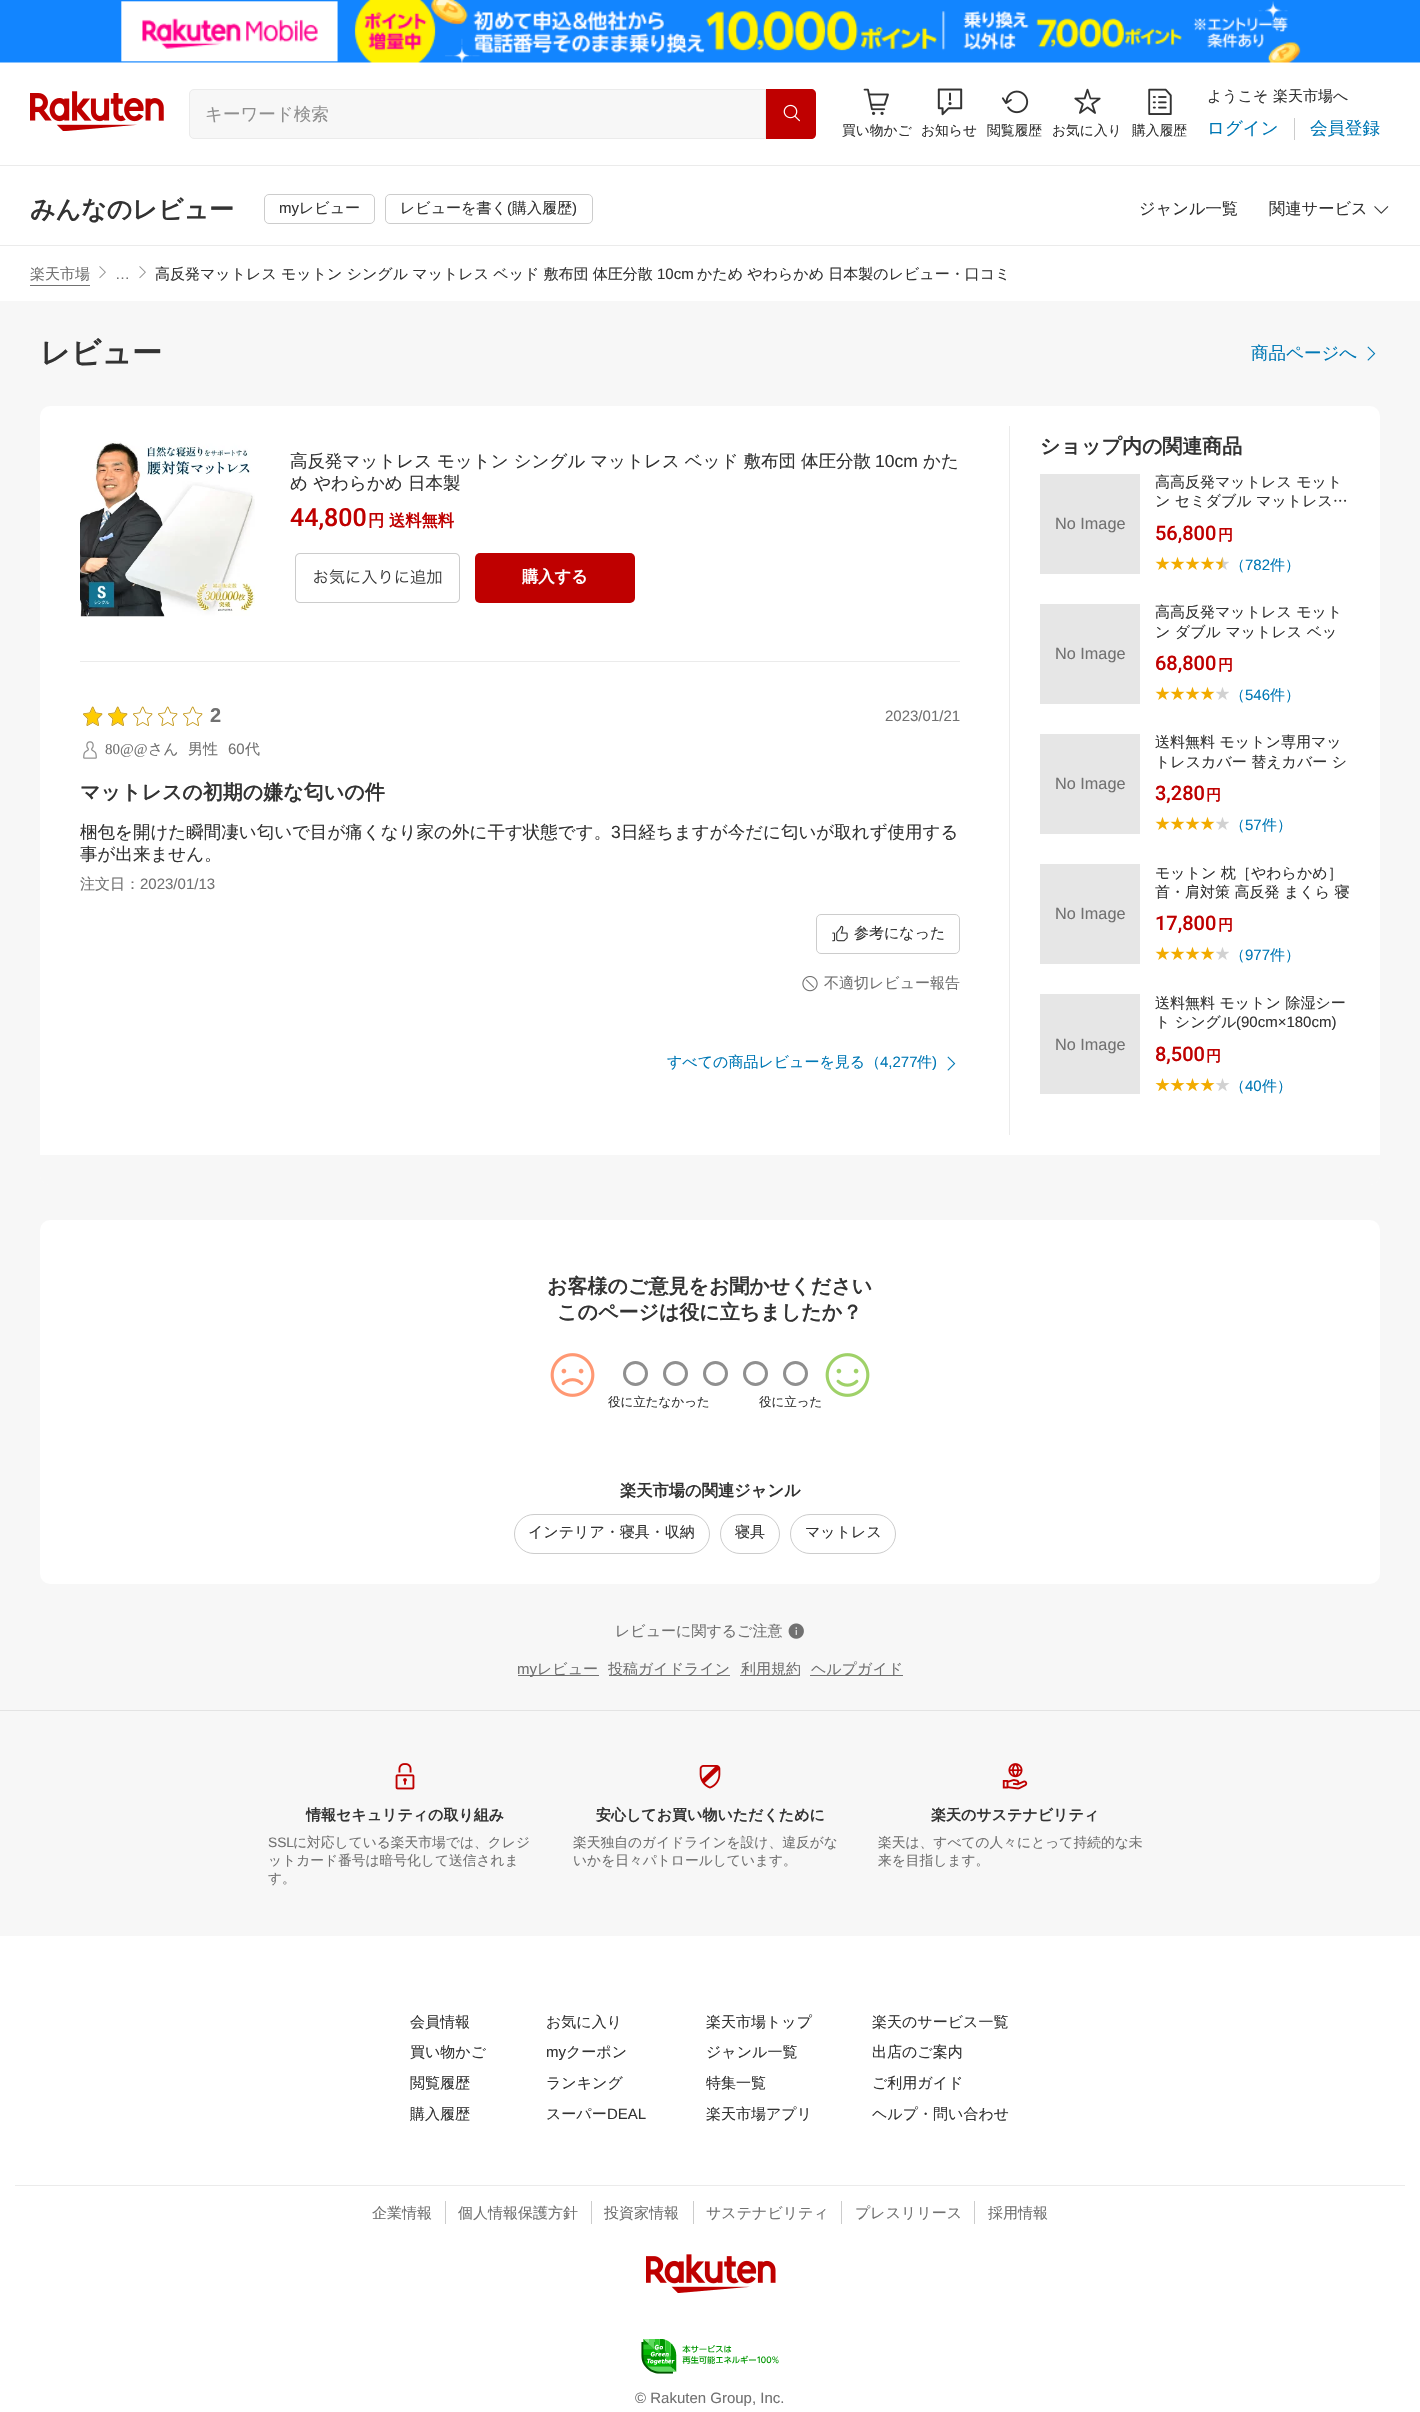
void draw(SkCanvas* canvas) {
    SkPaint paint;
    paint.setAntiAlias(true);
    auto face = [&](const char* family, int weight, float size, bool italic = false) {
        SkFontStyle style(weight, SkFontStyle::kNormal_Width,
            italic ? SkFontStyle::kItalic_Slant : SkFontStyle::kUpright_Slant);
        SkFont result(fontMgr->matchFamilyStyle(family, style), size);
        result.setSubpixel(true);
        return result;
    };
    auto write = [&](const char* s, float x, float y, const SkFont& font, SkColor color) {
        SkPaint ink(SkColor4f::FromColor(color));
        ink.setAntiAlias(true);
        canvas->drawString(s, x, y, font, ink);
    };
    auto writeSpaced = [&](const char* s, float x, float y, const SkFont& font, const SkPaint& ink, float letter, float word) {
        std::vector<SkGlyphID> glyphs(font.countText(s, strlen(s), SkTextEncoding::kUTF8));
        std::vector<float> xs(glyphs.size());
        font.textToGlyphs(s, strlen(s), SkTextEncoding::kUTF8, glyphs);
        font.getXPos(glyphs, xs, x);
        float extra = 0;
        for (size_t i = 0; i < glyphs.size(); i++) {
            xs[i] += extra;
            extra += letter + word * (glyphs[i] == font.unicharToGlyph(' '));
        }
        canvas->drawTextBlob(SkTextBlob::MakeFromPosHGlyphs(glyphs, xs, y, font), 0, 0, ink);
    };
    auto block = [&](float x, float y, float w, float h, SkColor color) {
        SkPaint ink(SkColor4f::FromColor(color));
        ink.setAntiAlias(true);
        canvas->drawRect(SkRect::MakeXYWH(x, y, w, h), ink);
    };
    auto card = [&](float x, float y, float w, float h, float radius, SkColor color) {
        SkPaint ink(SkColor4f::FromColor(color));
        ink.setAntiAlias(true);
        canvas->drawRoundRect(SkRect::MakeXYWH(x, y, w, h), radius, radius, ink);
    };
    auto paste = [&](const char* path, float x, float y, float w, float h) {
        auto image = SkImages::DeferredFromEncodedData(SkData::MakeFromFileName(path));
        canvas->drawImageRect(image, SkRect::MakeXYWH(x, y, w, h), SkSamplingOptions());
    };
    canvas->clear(SK_ColorWHITE);
    paste("pic1.png", 0, 0, 1420, 63);
    block(0, 165, 1420, 1, SkColorSetRGB(235, 235, 235));
    paste("pic2.png", 30, 91, 134, 40);
    paint.setColor(SkColorSetRGB(247, 247, 247));
    canvas->drawPath(SkPathBuilder().moveTo(194, 89.5f).lineTo(765.5f, 89.5f).lineTo(765.5f, 138.5f).lineTo(194, 138.5f).cubicTo(191.5f, 138.5f, 189.5f, 136.5f, 189.5f, 134).lineTo(189.5f, 94).cubicTo(189.5f, 91.5f, 191.5f, 89.5f, 194, 89.5f).close().detach(), paint);
    paint.setStyle(SkPaint::kStroke_Style);
    paint.setStrokeWidth(1);
    paint.setColor(SkColorSetRGB(235, 235, 235));
    canvas->drawPath(SkPathBuilder().moveTo(194, 89.5f).lineTo(765.5f, 89.5f).lineTo(765.5f, 138.5f).lineTo(194, 138.5f).cubicTo(191.5f, 138.5f, 189.5f, 136.5f, 189.5f, 134).lineTo(189.5f, 94).cubicTo(189.5f, 91.5f, 191.5f, 89.5f, 194, 89.5f).close().detach(), paint);
    auto kFont1 = face("WenQuanYi Zen Hei", 500, 17.5f);
    write("キーワード検索", 205, 120, kFont1, SkColorSetRGB(143, 143, 143));
    paint.setStyle(SkPaint::kFill_Style);
    paint.setColor(SkColorSetRGB(191, 0, 0));
    canvas->drawPath(SkPathBuilder().moveTo(766, 89).lineTo(811, 89).cubicTo(814, 89, 816, 91, 816, 94).lineTo(816, 134).cubicTo(816, 137, 814, 139, 811, 139).lineTo(766, 139).close().detach(), paint);
    paste("pic3.png", 783, 104, 17, 18);
    auto kFont2 = face("WenQuanYi Zen Hei", 500, 15);
    write("ようこそ 楽天市場へ", 1207, 101, kFont2, SkColorSetRGB(51, 51, 51));
    block(1294, 118, 1, 22, SkColorSetRGB(204, 204, 204));
    write("ログイン", 1207, 134, kFont1, SkColorSetRGB(0, 120, 181));
    write("会員登録", 1310, 134, kFont1, SkColorSetRGB(0, 120, 181));
    paste("pic4.png", 863, 88, 26, 27);
    auto kFont3 = face("WenQuanYi Zen Hei", 500, 13.75f);
    write("買い物かご", 842, 135, kFont3, SkColorSetRGB(51, 51, 51));
    paste("pic5.png", 937, 88, 26, 28);
    write("お知らせ", 921, 135, kFont3, SkColorSetRGB(51, 51, 51));
    paste("pic6.png", 1001, 90, 28, 24);
    write("閲覧履歴", 987, 135, kFont3, SkColorSetRGB(51, 51, 51));
    paste("pic7.png", 1074, 88, 27, 26);
    write("お気に入り", 1052, 135, kFont3, SkColorSetRGB(51, 51, 51));
    paste("pic8.png", 1148, 88, 24, 27);
    write("購入履歴", 1132, 135, kFont3, SkColorSetRGB(51, 51, 51));
    block(0, 245, 1420, 1, SkColorSetRGB(235, 235, 235));
    auto kFont4 = face("WenQuanYi Zen Hei", 700, 25);
    write("みんなのレビュー", 30, 218, kFont4, SkColorSetRGB(51, 51, 51));
    paint.setStyle(SkPaint::kStroke_Style);
    paint.setColor(SkColorSetRGB(204, 204, 204));
    canvas->drawRoundRect(SkRect::MakeXYWH(264.5f, 194.5f, 110, 29), 4.5f, 4.5f, paint);
    auto kFont5 = face("Liberation Sans", 400, 15);
    write("my", 279, 213, kFont5, SkColorSetRGB(51, 51, 51));
    write("レビュー", 299, 213, kFont2, SkColorSetRGB(51, 51, 51));
    canvas->drawRoundRect(SkRect::MakeXYWH(385.5f, 194.5f, 207, 29), 4.5f, 4.5f, paint);
    write("レビューを書く", 400, 213, kFont2, SkColorSetRGB(51, 51, 51));
    write("(", 507, 213, kFont5, SkColorSetRGB(51, 51, 51));
    write("購入履歴", 512, 213, kFont2, SkColorSetRGB(51, 51, 51));
    write(")", 572, 213, kFont5, SkColorSetRGB(51, 51, 51));
    auto kFont6 = face("WenQuanYi Zen Hei", 500, 16.25f);
    write("ジャンル一覧", 1139, 214, kFont6, SkColorSetRGB(51, 51, 51));
    write("関連サービス", 1269, 214, kFont6, SkColorSetRGB(51, 51, 51));
    paste("pic9.png", 1374, 206, 15, 8);
    block(30, 285, 60, 1, SkColorSetRGB(113, 113, 113));
    write("楽天市場", 30, 279, kFont2, SkColorSetRGB(113, 113, 113));
    paste("pic10.png", 99, 266, 7, 13);
    write("…", 115, 279, kFont5, SkColorSetRGB(113, 113, 113));
    paste("pic10.png", 139, 266, 7, 13);
    paint.setStyle(SkPaint::kFill_Style);
    paint.setColor(SkColorSetRGB(51, 51, 51));
    writeSpaced("高反発マットレス モットン シングル マットレス ベッド 敷布団 体圧分散", 155, 279, kFont2, paint, 0, -0.25f);
    write("10cm", 657, 279, kFont5, SkColorSetRGB(51, 51, 51));
    writeSpaced("かため やわらかめ 日本製のレビュー・口コミ", 697, 279, kFont2, paint, 0, -0.25f);
    block(0, 301, 1420, 1288, SkColorSetRGB(247, 247, 247));
    auto kFont7 = face("WenQuanYi Zen Hei", 700, 30);
    write("レビュー", 40, 363, kFont7, SkColorSetRGB(51, 51, 51));
    write("商品ページへ", 1251, 359, kFont1, SkColorSetRGB(0, 120, 181));
    paste("pic11.png", 1367, 346, 9, 15);
    card(40, 406, 1340, 779, 10, SK_ColorWHITE);
    block(80, 661, 880, 1, SkColorSetRGB(235, 235, 235));
    paste("pic12.png", 80, 441, 175, 176);
    writeSpaced("高反発マットレス モットン シングル マットレス ベッド 敷布団 体圧分散", 290, 467, kFont1, paint, 0, -0.25f);
    auto kFont8 = face("Liberation Sans", 400, 17.5f);
    write("10cm", 875, 467, kFont8, SkColorSetRGB(51, 51, 51));
    write("かた", 923, 467, kFont1, SkColorSetRGB(51, 51, 51));
    write("め やわらかめ 日本製", 290, 489, kFont1, SkColorSetRGB(51, 51, 51));
    auto kFont9 = face("Roboto", 500, 25);
    write("44,800", 290, 526, kFont9, SkColorSetRGB(191, 0, 0));
    auto kFont10 = face("WenQuanYi Zen Hei", 700, 16.25f);
    write("円 送料無料", 368, 526, kFont10, SkColorSetRGB(191, 0, 0));
    paste("pic13.png", 295, 553, 165, 50);
    card(475, 553, 160, 50, 5, SkColorSetRGB(191, 0, 0));
    write("購入する", 522, 582, kFont10, SK_ColorWHITE);
    paste("pic14.png", 83, 706, 20, 20);
    paste("pic14.png", 108, 706, 20, 20);
    paste("pic15.png", 133, 706, 20, 20);
    paste("pic15.png", 158, 706, 20, 20);
    paste("pic15.png", 183, 706, 20, 20);
    auto kFont11 = face("Liberation Sans", 700, 20);
    write("2", 210, 722, kFont11, SkColorSetRGB(113, 113, 113));
    write("2023/01/21", 885, 721, kFont5, SkColorSetRGB(113, 113, 113));
    paste("pic16.png", 83, 741, 14, 18);
    auto kFont12 = face("Liberation Serif", 400, 15);
    write("80@@", 105, 754, kFont12, SkColorSetRGB(113, 113, 113));
    write("さん", 148, 754, kFont2, SkColorSetRGB(113, 113, 113));
    write("男性", 188, 754, kFont2, SkColorSetRGB(113, 113, 113));
    write("60", 228, 754, kFont5, SkColorSetRGB(113, 113, 113));
    write("代", 245, 754, kFont2, SkColorSetRGB(113, 113, 113));
    auto kFont13 = face("WenQuanYi Zen Hei", 700, 20);
    write("マットレスの初期の嫌な匂いの件", 80, 799, kFont13, SkColorSetRGB(51, 51, 51));
    write("梱包を開けた瞬間凄い匂いで目が痛くなり家の外に干す状態です。", 80, 838, kFont1, SkColorSetRGB(51, 51, 51));
    write("3", 611, 838, kFont8, SkColorSetRGB(51, 51, 51));
    write("日経ちますが今だに匂いが取れず使用する", 621, 838, kFont1, SkColorSetRGB(51, 51, 51));
    write("事が出来ません。", 80, 860, kFont1, SkColorSetRGB(51, 51, 51));
    write("注文日：", 80, 889, kFont2, SkColorSetRGB(113, 113, 113));
    write("2023/01/13", 140, 889, kFont5, SkColorSetRGB(113, 113, 113));
    paint.setStyle(SkPaint::kStroke_Style);
    paint.setColor(SkColorSetRGB(204, 204, 204));
    canvas->drawRoundRect(SkRect::MakeXYWH(816.5f, 914.5f, 143, 39), 4.5f, 4.5f, paint);
    paste("pic17.png", 832, 925, 16, 17);
    write("参考になった", 854, 938, kFont2, SkColorSetRGB(51, 51, 51));
    paste("pic18.png", 802, 976, 16, 16);
    write("不適切レビュー報告", 824, 988, kFont2, SkColorSetRGB(113, 113, 113));
    write("すべての商品レビューを見る（", 667, 1067, kFont2, SkColorSetRGB(0, 120, 181));
    write("4,277", 880, 1067, kFont5, SkColorSetRGB(0, 120, 181));
    write("件", 917, 1067, kFont2, SkColorSetRGB(0, 120, 181));
    write(")", 932, 1067, kFont5, SkColorSetRGB(0, 120, 181));
    paste("pic19.png", 947, 1056, 9, 15);
    block(1009, 426, 1, 709, SkColorSetRGB(235, 235, 235));
    write("ショップ内の関連商品", 1040, 453, kFont13, SkColorSetRGB(51, 51, 51));
    block(1040, 474, 100, 100, SkColorSetRGB(230, 230, 230));
    auto kFont14 = face("Liberation Sans", 400, 16.25f);
    write("No Image", 1055, 529, kFont14, SkColorSetRGB(113, 113, 113));
    write("高高反発マットレス モット", 1155, 487, kFont2, SkColorSetRGB(51, 51, 51));
    write("ン セミダブル マットレス…", 1155, 506, kFont2, SkColorSetRGB(51, 51, 51));
    auto kFont15 = face("Roboto", 500, 20);
    write("56,800", 1155, 540, kFont15, SkColorSetRGB(191, 0, 0));
    auto kFont16 = face("WenQuanYi Zen Hei", 700, 15);
    write("円", 1218, 540, kFont16, SkColorSetRGB(191, 0, 0));
    paste("pic20.png", 1155, 556, 15, 14);
    paste("pic20.png", 1170, 556, 15, 14);
    paste("pic20.png", 1185, 556, 15, 14);
    paste("pic20.png", 1200, 556, 15, 14);
    paste("pic21.png", 1215, 556, 14, 14);
    write("（", 1230, 570, kFont2, SkColorSetRGB(0, 120, 181));
    write("782", 1245, 570, kFont5, SkColorSetRGB(0, 120, 181));
    write("件）", 1270, 570, kFont2, SkColorSetRGB(0, 120, 181));
    block(1040, 604, 100, 100, SkColorSetRGB(230, 230, 230));
    write("No Image", 1055, 659, kFont14, SkColorSetRGB(113, 113, 113));
    write("高高反発マットレス モット", 1155, 617, kFont2, SkColorSetRGB(51, 51, 51));
    write("ン ダブル マットレス ベッ", 1155, 637, kFont2, SkColorSetRGB(51, 51, 51));
    write("68,800", 1155, 670, kFont15, SkColorSetRGB(191, 0, 0));
    write("円", 1218, 670, kFont16, SkColorSetRGB(191, 0, 0));
    paste("pic20.png", 1155, 686, 15, 14);
    paste("pic20.png", 1170, 686, 15, 14);
    paste("pic20.png", 1185, 686, 15, 14);
    paste("pic20.png", 1200, 686, 15, 14);
    paste("pic22.png", 1216, 687, 13, 13);
    write("（", 1230, 700, kFont2, SkColorSetRGB(0, 120, 181));
    write("546", 1245, 700, kFont5, SkColorSetRGB(0, 120, 181));
    write("件）", 1270, 700, kFont2, SkColorSetRGB(0, 120, 181));
    block(1040, 734, 100, 100, SkColorSetRGB(230, 230, 230));
    write("No Image", 1055, 789, kFont14, SkColorSetRGB(113, 113, 113));
    write("送料無料 モットン専用マッ", 1155, 747, kFont2, SkColorSetRGB(51, 51, 51));
    write("トレスカバー 替えカバー シ", 1155, 767, kFont2, SkColorSetRGB(51, 51, 51));
    write("3,280", 1155, 800, kFont15, SkColorSetRGB(191, 0, 0));
    write("円", 1206, 800, kFont16, SkColorSetRGB(191, 0, 0));
    paste("pic20.png", 1155, 816, 15, 14);
    paste("pic20.png", 1170, 816, 15, 14);
    paste("pic20.png", 1185, 816, 15, 14);
    paste("pic20.png", 1200, 816, 15, 14);
    paste("pic22.png", 1216, 817, 13, 13);
    write("（", 1230, 830, kFont2, SkColorSetRGB(0, 120, 181));
    write("57", 1245, 830, kFont5, SkColorSetRGB(0, 120, 181));
    write("件）", 1262, 830, kFont2, SkColorSetRGB(0, 120, 181));
    block(1040, 864, 100, 100, SkColorSetRGB(230, 230, 230));
    write("No Image", 1055, 919, kFont14, SkColorSetRGB(113, 113, 113));
    write("モットン 枕［やわらかめ］", 1155, 878, kFont2, SkColorSetRGB(51, 51, 51));
    write("首・肩対策 高反発 まくら 寝", 1155, 897, kFont2, SkColorSetRGB(51, 51, 51));
    write("17,800", 1155, 930, kFont15, SkColorSetRGB(191, 0, 0));
    write("円", 1218, 930, kFont16, SkColorSetRGB(191, 0, 0));
    paste("pic20.png", 1155, 946, 15, 14);
    paste("pic20.png", 1170, 946, 15, 14);
    paste("pic20.png", 1185, 946, 15, 14);
    paste("pic20.png", 1200, 946, 15, 14);
    paste("pic22.png", 1216, 947, 13, 13);
    write("（", 1230, 960, kFont2, SkColorSetRGB(0, 120, 181));
    write("977", 1245, 960, kFont5, SkColorSetRGB(0, 120, 181));
    write("件）", 1270, 960, kFont2, SkColorSetRGB(0, 120, 181));
    block(1040, 994, 100, 100, SkColorSetRGB(230, 230, 230));
    write("No Image", 1055, 1050, kFont14, SkColorSetRGB(113, 113, 113));
    write("送料無料 モットン 除湿シー", 1155, 1008, kFont2, SkColorSetRGB(51, 51, 51));
    write("ト シングル", 1155, 1027, kFont2, SkColorSetRGB(51, 51, 51));
    write("(90cm×180cm)", 1236, 1027, kFont5, SkColorSetRGB(51, 51, 51));
    write("8,500", 1155, 1061, kFont15, SkColorSetRGB(191, 0, 0));
    write("円", 1206, 1061, kFont16, SkColorSetRGB(191, 0, 0));
    paste("pic23.png", 1155, 1078, 15, 13);
    paste("pic23.png", 1170, 1078, 15, 13);
    paste("pic23.png", 1185, 1078, 15, 13);
    paste("pic23.png", 1200, 1078, 15, 13);
    paste("pic24.png", 1215, 1078, 15, 13);
    write("（", 1230, 1091, kFont2, SkColorSetRGB(0, 120, 181));
    write("40", 1245, 1091, kFont5, SkColorSetRGB(0, 120, 181));
    write("件）", 1262, 1091, kFont2, SkColorSetRGB(0, 120, 181));
    paint.setStyle(SkPaint::kFill_Style);
    paint.setColor(SkColorSetRGB(247, 247, 247));
    canvas->drawPath(SkPathBuilder().moveTo(40, 1155).lineTo(1380, 1155).lineTo(1380, 1175).cubicTo(1380, 1180.5f, 1375.5f, 1185, 1370, 1185).lineTo(50, 1185).cubicTo(44.5f, 1185, 40, 1180.5f, 40, 1175).close().detach(), paint);
    card(40, 1220, 1340, 364, 10, SK_ColorWHITE);
    write("お客様のご意見をお聞かせください", 547, 1293, kFont13, SkColorSetRGB(51, 51, 51));
    write("このページは役に立ちましたか？", 557, 1319, kFont13, SkColorSetRGB(51, 51, 51));
    paste("pic25.png", 550, 1353, 45, 44);
    paste("pic26.png", 825, 1353, 45, 44);
    paint.setStyle(SkPaint::kStroke_Style);
    paint.setStrokeWidth(3);
    paint.setColor(SkColorSetRGB(143, 143, 143));
    canvas->drawCircle(635.5f, 1373.5f, 11, paint);
    canvas->drawCircle(675.5f, 1373.5f, 11, paint);
    canvas->drawCircle(715.5f, 1373.5f, 11, paint);
    canvas->drawCircle(755.5f, 1373.5f, 11, paint);
    canvas->drawCircle(795.5f, 1373.5f, 11, paint);
    auto kFont17 = face("WenQuanYi Zen Hei", 500, 12.5f);
    write("役に立たなかった", 608, 1406, kFont17, SkColorSetRGB(51, 51, 51));
    write("役に立った", 759, 1406, kFont17, SkColorSetRGB(51, 51, 51));
    write("楽天市場の関連ジャンル", 620, 1496, kFont10, SkColorSetRGB(51, 51, 51));
    paint.setStrokeWidth(1);
    paint.setColor(SkColorSetRGB(204, 204, 204));
    canvas->drawRoundRect(SkRect::MakeXYWH(514.5f, 1514.5f, 195, 39), 19.5f, 19.5f, paint);
    write("インテリア・寝具・収納", 528, 1537, kFont2, SkColorSetRGB(51, 51, 51));
    canvas->drawRoundRect(SkRect::MakeXYWH(720.5f, 1514.5f, 59, 39), 19.5f, 19.5f, paint);
    write("寝具", 735, 1537, kFont2, SkColorSetRGB(51, 51, 51));
    canvas->drawRoundRect(SkRect::MakeXYWH(790.5f, 1514.5f, 105, 39), 19.5f, 19.5f, paint);
    write("マットレス", 805, 1537, kFont2, SkColorSetRGB(51, 51, 51));
    block(0, 1589, 1420, 121, SkColorSetRGB(247, 247, 247));
    block(0, 1710, 1420, 1, SkColorSetRGB(227, 227, 227));
    write("レビューに関するご注意", 615, 1636, kFont2, SkColorSetRGB(113, 113, 113));
    paste("pic27.png", 788, 1623, 16, 16);
    block(518, 1675, 81, 1, SkColorSetRGB(113, 113, 113));
    write("my", 517, 1674, kFont5, SkColorSetRGB(113, 113, 113));
    write("レビュー", 537, 1674, kFont2, SkColorSetRGB(113, 113, 113));
    block(609, 1675, 121, 1, SkColorSetRGB(113, 113, 113));
    write("投稿ガイドライン", 608, 1674, kFont2, SkColorSetRGB(113, 113, 113));
    block(740, 1675, 60, 1, SkColorSetRGB(113, 113, 113));
    write("利用規約", 741, 1674, kFont2, SkColorSetRGB(113, 113, 113));
    block(810, 1675, 93, 1, SkColorSetRGB(113, 113, 113));
    write("ヘルプガイド", 811, 1674, kFont2, SkColorSetRGB(113, 113, 113));
    block(0, 1711, 1420, 225, SkColorSetRGB(247, 247, 247));
    paste("pic28.png", 395, 1763, 20, 27);
    write("情報セキュリティの取り組み", 306, 1820, kFont16, SkColorSetRGB(51, 51, 51));
    auto kFont18 = face("Liberation Sans", 400, 13.75f);
    write("SSL", 268, 1847, kFont18, SkColorSetRGB(113, 113, 113));
    write("に対応している楽天市場では、クレジ", 293, 1847, kFont3, SkColorSetRGB(113, 113, 113));
    write("ットカード番号は暗号化して送信されま", 268, 1865, kFont3, SkColorSetRGB(113, 113, 113));
    write("す。", 268, 1883, kFont3, SkColorSetRGB(113, 113, 113));
    paste("pic29.png", 699, 1765, 22, 24);
    write("安心してお買い物いただくために", 596, 1820, kFont16, SkColorSetRGB(51, 51, 51));
    write("楽天独自のガイドラインを設け、違反がな", 573, 1847, kFont3, SkColorSetRGB(113, 113, 113));
    write("いかを日々パトロールしています。", 573, 1865, kFont3, SkColorSetRGB(113, 113, 113));
    paste("pic30.png", 1002, 1763, 26, 27);
    write("楽天のサステナビリティ", 931, 1820, kFont16, SkColorSetRGB(51, 51, 51));
    write("楽天は、すべての人々にとって持続的な未", 878, 1847, kFont3, SkColorSetRGB(113, 113, 113));
    write("来を目指します。", 878, 1865, kFont3, SkColorSetRGB(113, 113, 113));
    block(15, 2185, 1390, 1, SkColorSetRGB(235, 235, 235));
    write("会員情報", 410, 2027, kFont2, SkColorSetRGB(51, 51, 51));
    write("買い物かご", 410, 2057, kFont2, SkColorSetRGB(51, 51, 51));
    write("閲覧履歴", 410, 2088, kFont2, SkColorSetRGB(51, 51, 51));
    write("購入履歴", 410, 2119, kFont2, SkColorSetRGB(51, 51, 51));
    write("お気に入り", 546, 2027, kFont2, SkColorSetRGB(51, 51, 51));
    write("my", 546, 2057, kFont5, SkColorSetRGB(51, 51, 51));
    write("クーポン", 566, 2057, kFont2, SkColorSetRGB(51, 51, 51));
    write("ランキング", 546, 2088, kFont2, SkColorSetRGB(51, 51, 51));
    write("スーパー", 546, 2119, kFont2, SkColorSetRGB(51, 51, 51));
    write("DEAL", 607, 2119, kFont5, SkColorSetRGB(51, 51, 51));
    write("楽天市場トップ", 706, 2027, kFont2, SkColorSetRGB(51, 51, 51));
    write("ジャンル一覧", 706, 2057, kFont2, SkColorSetRGB(51, 51, 51));
    write("特集一覧", 706, 2088, kFont2, SkColorSetRGB(51, 51, 51));
    write("楽天市場アプリ", 706, 2119, kFont2, SkColorSetRGB(51, 51, 51));
    write("楽天のサービス一覧", 872, 2027, kFont2, SkColorSetRGB(51, 51, 51));
    write("出店のご案内", 872, 2057, kFont2, SkColorSetRGB(51, 51, 51));
    write("ご利用ガイド", 872, 2088, kFont2, SkColorSetRGB(51, 51, 51));
    write("ヘルプ・問い合わせ", 872, 2119, kFont2, SkColorSetRGB(51, 51, 51));
    block(445, 2201, 1, 23, SkColorSetRGB(204, 204, 204));
    write("企業情報", 372, 2218, kFont2, SkColorSetRGB(113, 113, 113));
    block(591, 2201, 1, 23, SkColorSetRGB(204, 204, 204));
    write("個人情報保護方針", 458, 2218, kFont2, SkColorSetRGB(113, 113, 113));
    block(693, 2201, 1, 23, SkColorSetRGB(204, 204, 204));
    write("投資家情報", 604, 2218, kFont2, SkColorSetRGB(113, 113, 113));
    block(841, 2201, 1, 23, SkColorSetRGB(204, 204, 204));
    write("サステナビリティ", 706, 2218, kFont2, SkColorSetRGB(113, 113, 113));
    block(974, 2201, 1, 23, SkColorSetRGB(204, 204, 204));
    write("プレスリリース", 855, 2218, kFont2, SkColorSetRGB(113, 113, 113));
    write("採用情報", 988, 2218, kFont2, SkColorSetRGB(113, 113, 113));
    paste("pic31.png", 646, 2254, 130, 39);
    paste("pic32.png", 641, 2339, 138, 35);
    write("© Rakuten Group, Inc.", 635, 2403, kFont5, SkColorSetRGB(113, 113, 113));
}
